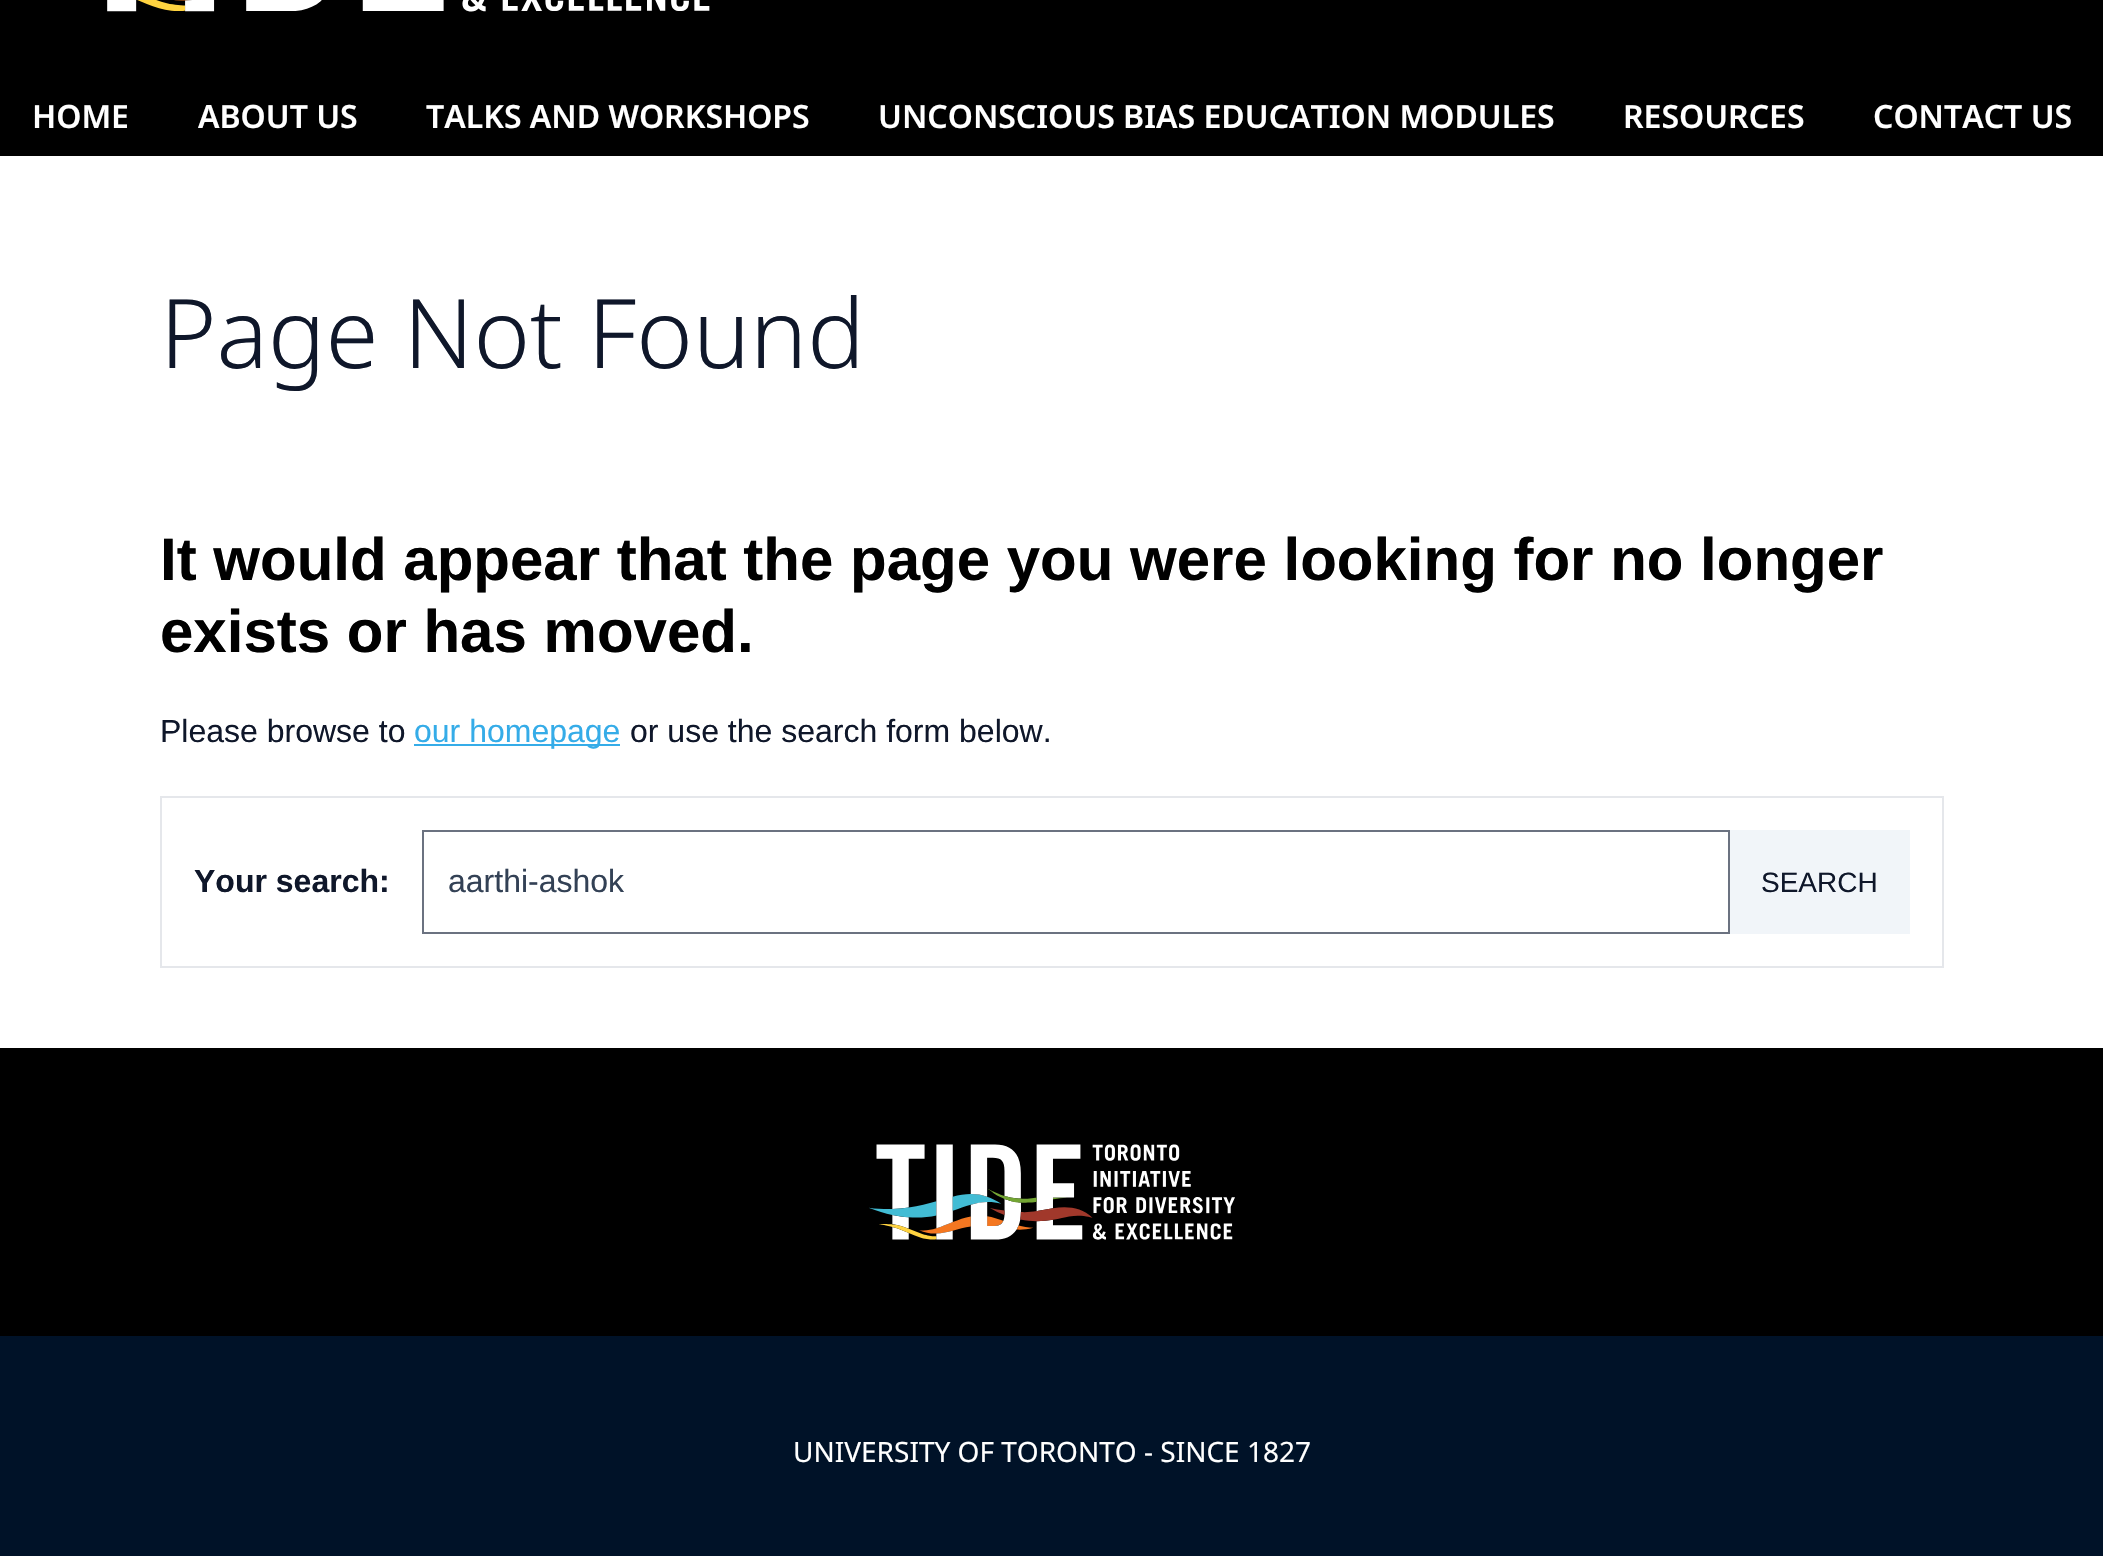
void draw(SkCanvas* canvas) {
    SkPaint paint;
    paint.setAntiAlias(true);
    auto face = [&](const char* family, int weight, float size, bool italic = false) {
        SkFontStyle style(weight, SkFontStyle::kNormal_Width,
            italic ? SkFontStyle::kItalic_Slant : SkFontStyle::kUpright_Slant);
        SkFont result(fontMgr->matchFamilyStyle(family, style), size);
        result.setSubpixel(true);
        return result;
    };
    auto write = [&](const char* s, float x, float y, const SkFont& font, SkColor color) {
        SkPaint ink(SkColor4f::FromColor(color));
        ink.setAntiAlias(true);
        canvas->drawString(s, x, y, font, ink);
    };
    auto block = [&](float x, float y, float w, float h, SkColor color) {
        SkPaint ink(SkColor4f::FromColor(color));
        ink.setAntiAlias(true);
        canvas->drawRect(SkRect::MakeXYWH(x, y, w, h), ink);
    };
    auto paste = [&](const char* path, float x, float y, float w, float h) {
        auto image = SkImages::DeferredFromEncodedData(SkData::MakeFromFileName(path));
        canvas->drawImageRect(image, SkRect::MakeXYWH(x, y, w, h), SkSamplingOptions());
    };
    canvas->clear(SK_ColorWHITE);
    block(0, 0, 2103, 156, SK_ColorBLACK);
    paste("pic1.png", 107, 0, 603, 12);
    auto kFont1 = face("Noto Sans", 600, 32);
    write("HOME", 32, 128, kFont1, SK_ColorWHITE);
    write("ABOUT US", 198, 128, kFont1, SK_ColorWHITE);
    write("TALKS AND WORKSHOPS", 426, 128, kFont1, SK_ColorWHITE);
    write("UNCONSCIOUS BIAS EDUCATION MODULES", 878, 128, kFont1, SK_ColorWHITE);
    write("RESOURCES", 1623, 128, kFont1, SK_ColorWHITE);
    write("CONTACT US", 1873, 128, kFont1, SK_ColorWHITE);
    auto kFont2 = face("Noto Sans", 300, 96);
    write("Page Not Found", 160, 368, kFont2, SkColorSetRGB(15, 23, 42));
    auto kFont3 = face("Liberation Sans", 700, 60);
    write("It would appear that the page you were looking for no longer", 160, 580, kFont3, SK_ColorBLACK);
    write("exists or has moved.", 160, 652, kFont3, SK_ColorBLACK);
    auto kFont4 = face("Liberation Sans", 400, 32);
    write("Please browse to", 160, 742, kFont4, SkColorSetRGB(15, 23, 42));
    block(414, 744, 206, 2, SkColorSetRGB(53, 172, 232));
    write("our homepage", 414, 742, kFont4, SkColorSetRGB(53, 172, 232));
    write("or use the search form below.", 630, 742, kFont4, SkColorSetRGB(15, 23, 42));
    paint.setStyle(SkPaint::kStroke_Style);
    paint.setStrokeWidth(2);
    paint.setColor(SkColorSetRGB(229, 231, 235));
    canvas->drawRect(SkRect::MakeXYWH(161, 797, 1782, 170), paint);
    auto kFont5 = face("Liberation Sans", 700, 32);
    write("Your search:", 194, 892, kFont5, SkColorSetRGB(15, 23, 42));
    paint.setColor(SkColorSetRGB(107, 114, 128));
    canvas->drawRect(SkRect::MakeXYWH(423, 831, 1306, 102), paint);
    write("aarthi-ashok", 448, 892, kFont4, SkColorSetRGB(51, 65, 85));
    block(1730, 830, 180, 104, SkColorSetRGB(241, 245, 249));
    auto kFont6 = face("Liberation Sans", 400, 28);
    write("SEARCH", 1761, 892, kFont6, SkColorSetRGB(15, 23, 42));
    block(0, 1048, 2103, 288, SK_ColorBLACK);
    paste("pic2.png", 869, 1144, 366, 96);
    block(0, 1336, 2103, 220, SkColorSetRGB(0, 18, 40));
    auto kFont7 = face("Noto Sans", 400, 28);
    write("UNIVERSITY OF TORONTO - SINCE 1827", 793, 1462, kFont7, SK_ColorWHITE);
}
